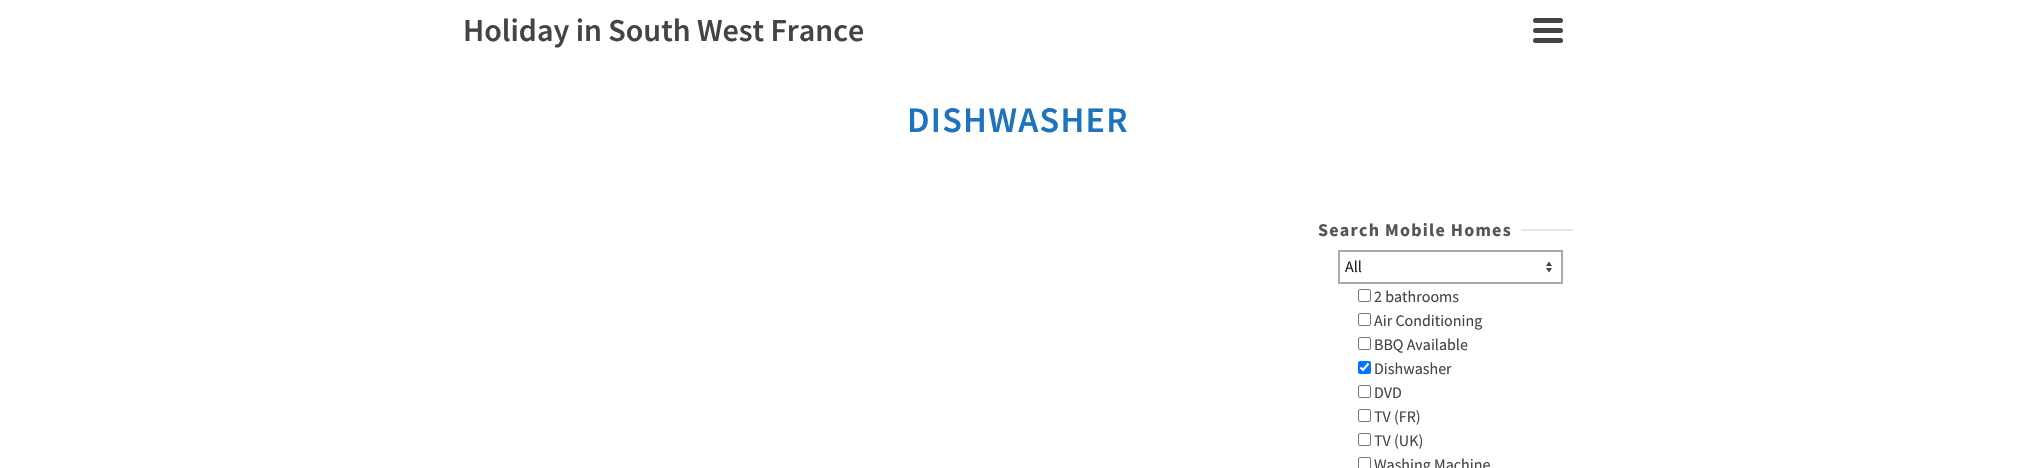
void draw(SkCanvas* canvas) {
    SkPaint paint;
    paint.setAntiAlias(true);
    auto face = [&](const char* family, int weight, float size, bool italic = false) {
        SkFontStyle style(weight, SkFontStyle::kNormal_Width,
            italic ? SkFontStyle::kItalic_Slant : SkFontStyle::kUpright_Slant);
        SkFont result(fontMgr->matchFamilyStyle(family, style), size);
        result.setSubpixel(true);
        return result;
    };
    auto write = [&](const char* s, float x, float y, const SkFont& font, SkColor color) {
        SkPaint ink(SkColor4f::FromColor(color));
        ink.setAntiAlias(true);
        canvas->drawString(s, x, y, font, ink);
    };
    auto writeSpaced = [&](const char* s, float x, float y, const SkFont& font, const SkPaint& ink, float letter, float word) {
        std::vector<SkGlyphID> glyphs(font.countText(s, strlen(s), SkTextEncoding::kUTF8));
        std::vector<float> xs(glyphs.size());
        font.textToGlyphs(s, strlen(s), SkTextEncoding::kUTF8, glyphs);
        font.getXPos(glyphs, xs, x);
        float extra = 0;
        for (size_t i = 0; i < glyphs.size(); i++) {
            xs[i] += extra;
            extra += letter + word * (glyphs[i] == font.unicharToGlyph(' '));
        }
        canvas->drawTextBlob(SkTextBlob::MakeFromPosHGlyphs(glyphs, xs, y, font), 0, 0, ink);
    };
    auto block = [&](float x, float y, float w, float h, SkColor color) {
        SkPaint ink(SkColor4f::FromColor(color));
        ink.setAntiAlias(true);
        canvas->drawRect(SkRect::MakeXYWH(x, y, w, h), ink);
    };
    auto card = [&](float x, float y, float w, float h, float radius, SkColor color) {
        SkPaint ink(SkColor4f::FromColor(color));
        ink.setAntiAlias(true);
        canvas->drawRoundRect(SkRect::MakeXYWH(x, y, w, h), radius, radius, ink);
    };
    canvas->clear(SK_ColorWHITE);
    auto kFont1 = face("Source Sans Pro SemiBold", 600, 32);
    write("Holiday in South West France", 463, 41, kFont1, SkColorSetRGB(68, 68, 68));
    card(1533, 18, 30, 5, 2.5f, SkColorSetRGB(68, 68, 68));
    card(1533, 28, 30, 5, 2.5f, SkColorSetRGB(68, 68, 68));
    card(1533, 38, 30, 5, 2.5f, SkColorSetRGB(68, 68, 68));
    auto kFont2 = face("Source Sans Pro SemiBold", 600, 36);
    paint.setColor(SkColorSetRGB(30, 115, 190));
    writeSpaced("DISHWASHER", 907, 132, kFont2, paint, 1.25f, 0);
    auto kFont3 = face("Source Sans Pro", 700, 18);
    paint.setColor(SkColorSetRGB(85, 85, 85));
    writeSpaced("Search Mobile Homes", 1318, 236, kFont3, paint, 1.25f, 0);
    block(1521, 229, 52, 2, SkColorSetRGB(230, 230, 230));
    paint.setColor(SkColorSetRGB(68, 68, 68));
    canvas->drawPath(SkPathBuilder().moveTo(1546, 266).lineTo(1549, 261.5f).lineTo(1552, 266).close().moveTo(1552, 268).lineTo(1549, 272.5f).lineTo(1546, 268).close().detach(), paint);
    paint.setStyle(SkPaint::kStroke_Style);
    paint.setStrokeWidth(2);
    paint.setColor(SkColorSetRGB(170, 170, 170));
    canvas->drawRect(SkRect::MakeXYWH(1339, 251, 223, 32), paint);
    auto kFont4 = face("Source Sans Pro", 400, 16);
    write("All", 1345, 272, kFont4, SkColorSetRGB(34, 34, 34));
    paint.setStrokeWidth(1);
    paint.setColor(SkColorSetRGB(118, 118, 118));
    canvas->drawRoundRect(SkRect::MakeXYWH(1358.5f, 289.5f, 12, 12), 1.5f, 1.5f, paint);
    write("2 bathrooms", 1374, 302, kFont4, SkColorSetRGB(68, 68, 68));
    canvas->drawRoundRect(SkRect::MakeXYWH(1358.5f, 313.5f, 12, 12), 1.5f, 1.5f, paint);
    write("Air Conditioning", 1374, 326, kFont4, SkColorSetRGB(68, 68, 68));
    canvas->drawRoundRect(SkRect::MakeXYWH(1358.5f, 337.5f, 12, 12), 1.5f, 1.5f, paint);
    write("BBQ Available", 1374, 350, kFont4, SkColorSetRGB(68, 68, 68));
    card(1358, 361, 13, 13, 2, SkColorSetRGB(0, 117, 255));
    paint.setStrokeWidth(2.1f);
    paint.setColor(SK_ColorWHITE);
    canvas->drawPath(SkPathBuilder().moveTo(1360.5f, 367.5f).lineTo(1363, 370).lineTo(1368.5f, 363.5f).detach(), paint);
    write("Dishwasher", 1374, 374, kFont4, SkColorSetRGB(68, 68, 68));
    paint.setStrokeWidth(1);
    paint.setColor(SkColorSetRGB(118, 118, 118));
    canvas->drawRoundRect(SkRect::MakeXYWH(1358.5f, 385.5f, 12, 12), 1.5f, 1.5f, paint);
    write("DVD", 1374, 398, kFont4, SkColorSetRGB(68, 68, 68));
    canvas->drawRoundRect(SkRect::MakeXYWH(1358.5f, 409.5f, 12, 12), 1.5f, 1.5f, paint);
    write("TV (FR)", 1374, 422, kFont4, SkColorSetRGB(68, 68, 68));
    canvas->drawRoundRect(SkRect::MakeXYWH(1358.5f, 433.5f, 12, 12), 1.5f, 1.5f, paint);
    write("TV (UK)", 1374, 446, kFont4, SkColorSetRGB(68, 68, 68));
    canvas->drawRoundRect(SkRect::MakeXYWH(1358.5f, 457.5f, 12, 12), 1.5f, 1.5f, paint);
    write("Washing Machine", 1374, 470, kFont4, SkColorSetRGB(68, 68, 68));
}
